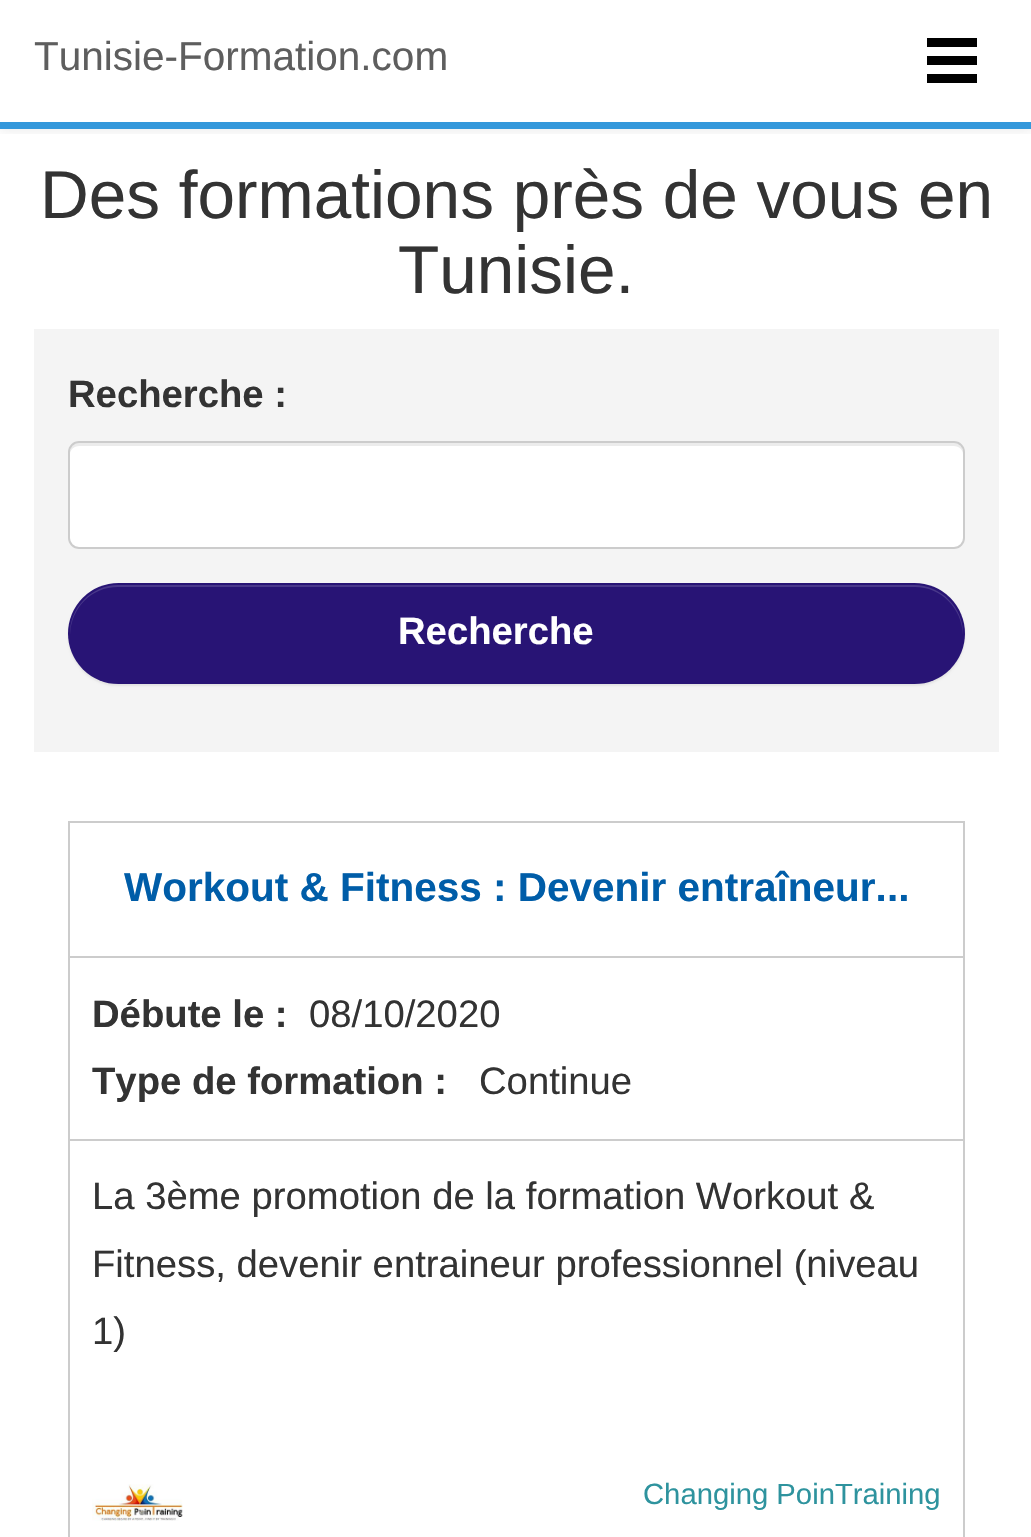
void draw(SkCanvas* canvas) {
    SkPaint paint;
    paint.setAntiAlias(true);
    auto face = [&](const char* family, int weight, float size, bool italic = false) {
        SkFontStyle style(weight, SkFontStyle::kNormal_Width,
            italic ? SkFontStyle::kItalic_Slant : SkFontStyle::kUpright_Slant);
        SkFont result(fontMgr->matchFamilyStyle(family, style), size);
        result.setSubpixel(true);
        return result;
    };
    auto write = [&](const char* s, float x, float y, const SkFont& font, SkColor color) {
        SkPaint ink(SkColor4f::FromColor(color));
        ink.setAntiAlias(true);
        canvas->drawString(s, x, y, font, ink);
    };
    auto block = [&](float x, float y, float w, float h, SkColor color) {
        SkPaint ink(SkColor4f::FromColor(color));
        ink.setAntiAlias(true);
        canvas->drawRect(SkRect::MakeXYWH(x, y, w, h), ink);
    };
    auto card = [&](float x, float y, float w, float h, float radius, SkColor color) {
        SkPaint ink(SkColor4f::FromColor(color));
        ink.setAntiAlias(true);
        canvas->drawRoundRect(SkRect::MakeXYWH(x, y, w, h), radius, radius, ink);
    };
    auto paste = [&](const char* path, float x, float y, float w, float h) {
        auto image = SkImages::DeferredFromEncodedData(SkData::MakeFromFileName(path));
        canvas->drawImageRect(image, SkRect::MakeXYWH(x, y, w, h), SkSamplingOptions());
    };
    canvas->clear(SK_ColorWHITE);
    canvas->save();
    canvas->clipRect(SkRect::MakeXYWH(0, 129, 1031, 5));
    paint.setColor(SkColorSetARGB(18, 0, 0, 0));
    paint.setMaskFilter(SkMaskFilter::MakeBlur(kNormal_SkBlurStyle, 5.5f));
    canvas->drawRect(SkRect::MakeXYWH(0, 2, 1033, 129), paint);
    paint.setMaskFilter(nullptr);
    canvas->restore();
    block(0, 122, 1031, 7, SkColorSetRGB(52, 152, 219));
    auto kFont1 = face("Liberation Sans", 400, 40.5f);
    write("Tunisie-Formation.com", 34, 70, kFont1, SkColorSetRGB(94, 94, 94));
    block(927, 38, 50, 9, SK_ColorBLACK);
    block(927, 56, 50, 9, SK_ColorBLACK);
    block(927, 74, 50, 9, SK_ColorBLACK);
    auto kFont2 = face("Liberation Sans", 400, 67.5f);
    write("Des formations près de vous en", 40, 218, kFont2, SkColorSetRGB(51, 51, 51));
    write("Tunisie.", 398, 293, kFont2, SkColorSetRGB(51, 51, 51));
    block(34, 329, 965, 423, SkColorSetRGB(244, 244, 244));
    auto kFont3 = face("Liberation Sans", 700, 38.25f);
    write("Recherche :", 68, 407, kFont3, SkColorSetRGB(51, 51, 51));
    card(68, 441, 897, 108, 11, SK_ColorWHITE);
    paint.setColor(SkColorSetRGB(236, 236, 236));
    canvas->drawPath(SkPathBuilder().moveTo(79, 446).lineTo(954, 446).cubicTo(959, 446, 963, 450, 963, 454).lineTo(963, 452).cubicTo(963, 447, 959, 443, 954, 443).lineTo(79, 443).cubicTo(74, 443, 70, 447, 70, 452).lineTo(70, 454).cubicTo(70, 450, 74, 446, 79, 446).close().detach(), paint);
    paint.setStyle(SkPaint::kStroke_Style);
    paint.setStrokeWidth(2);
    paint.setColor(SkColorSetRGB(204, 204, 204));
    canvas->drawRoundRect(SkRect::MakeXYWH(69, 442, 895, 106), 10, 10, paint);
    paint.setStyle(SkPaint::kFill_Style);
    paint.setColor(SkColorSetARGB(18, 0, 0, 0));
    paint.setMaskFilter(SkMaskFilter::MakeBlur(kNormal_SkBlurStyle, 1));
    canvas->drawRoundRect(SkRect::MakeXYWH(68, 585, 897, 101), 50.5f, 50.5f, paint);
    paint.setMaskFilter(nullptr);
    card(68, 583, 897, 101, 50.5f, SkColorSetRGB(40, 20, 117));
    paint.setColor(SkColorSetRGB(72, 55, 138));
    canvas->drawPath(SkPathBuilder().moveTo(118, 587).lineTo(915, 587).cubicTo(941, 587, 962, 608, 963, 635).cubicTo(964, 608, 941, 585, 914, 585).lineTo(118, 585).cubicTo(92, 585, 69, 608, 70, 635).cubicTo(71, 608, 91, 587, 118, 587).close().detach(), paint);
    write("Recherche", 398, 644, kFont3, SK_ColorWHITE);
    paint.setStyle(SkPaint::kStroke_Style);
    paint.setColor(SkColorSetRGB(204, 204, 204));
    canvas->drawRect(SkRect::MakeXYWH(69, 822, 895, 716), paint);
    block(70, 956, 893, 2, SkColorSetRGB(204, 204, 204));
    auto kFont4 = face("Liberation Sans", 700, 40.5f);
    write("Workout & Fitness : Devenir entraîneur...", 124, 901, kFont4, SkColorSetRGB(0, 93, 168));
    block(70, 1139, 893, 2, SkColorSetRGB(204, 204, 204));
    write("Débute le :", 92, 1027, kFont3, SkColorSetRGB(51, 51, 51));
    auto kFont5 = face("Liberation Sans", 400, 38.25f);
    write("08/10/2020", 309, 1027, kFont5, SkColorSetRGB(51, 51, 51));
    write("Type de formation :", 92, 1094, kFont3, SkColorSetRGB(51, 51, 51));
    write("Continue", 479, 1094, kFont5, SkColorSetRGB(51, 51, 51));
    write("La 3ème promotion de la formation Workout &", 92, 1209, kFont5, SkColorSetRGB(51, 51, 51));
    write("Fitness, devenir entraineur professionnel (niveau", 92, 1277, kFont5, SkColorSetRGB(51, 51, 51));
    write("1)", 92, 1344, kFont5, SkColorSetRGB(51, 51, 51));
    paste("pic1.png", 92, 1484, 91, 37);
    auto kFont6 = face("Liberation Sans", 400, 29.25f);
    write("Changing PoinTraining", 643, 1504, kFont6, SkColorSetRGB(46, 147, 158));
}
